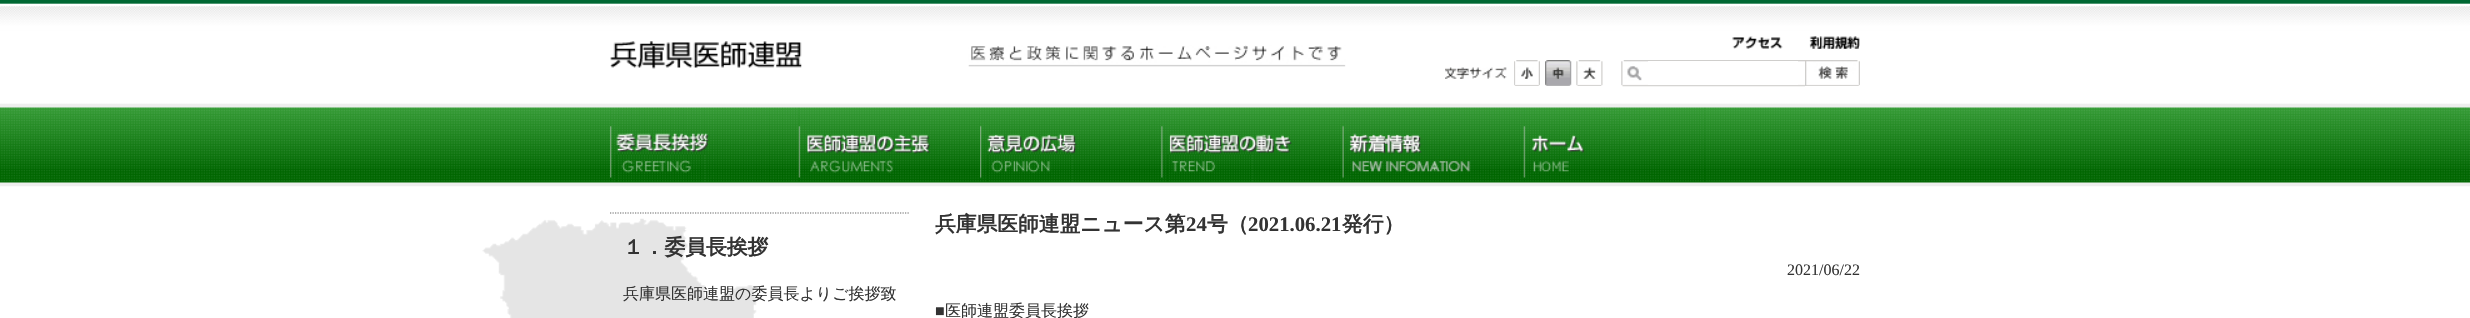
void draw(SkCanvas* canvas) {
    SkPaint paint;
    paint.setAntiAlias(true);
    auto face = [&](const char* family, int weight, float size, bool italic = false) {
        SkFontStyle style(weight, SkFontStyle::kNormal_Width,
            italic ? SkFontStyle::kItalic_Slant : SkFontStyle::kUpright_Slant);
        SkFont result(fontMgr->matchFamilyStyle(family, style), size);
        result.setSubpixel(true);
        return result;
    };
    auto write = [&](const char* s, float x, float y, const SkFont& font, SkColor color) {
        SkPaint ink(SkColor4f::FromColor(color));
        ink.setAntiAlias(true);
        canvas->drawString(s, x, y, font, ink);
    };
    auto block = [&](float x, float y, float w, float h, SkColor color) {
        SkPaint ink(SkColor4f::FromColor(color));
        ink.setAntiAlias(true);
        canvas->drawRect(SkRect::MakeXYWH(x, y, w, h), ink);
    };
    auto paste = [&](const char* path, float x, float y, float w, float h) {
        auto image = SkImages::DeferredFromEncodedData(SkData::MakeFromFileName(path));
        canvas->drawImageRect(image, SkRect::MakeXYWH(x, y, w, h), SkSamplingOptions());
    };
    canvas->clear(SK_ColorWHITE);
    paste("pic1.png", 0, 0, 2470, 187);
    paste("pic2.png", 482, 218, 275, 100);
    paste("pic3.png", 610, 41, 192, 28);
    paste("pic4.png", 968, 45, 378, 22);
    paste("pic5.png", 1732, 36, 51, 13);
    paste("pic6.png", 1809, 36, 51, 13);
    paste("pic7.png", 1445, 67, 62, 12);
    paste("pic8.png", 1514, 60, 26, 26);
    paste("pic9.png", 1545, 60, 27, 26);
    paste("pic10.png", 1576, 60, 27, 26);
    paste("pic11.png", 1621, 60, 184, 27);
    block(1648, 61, 150, 24, SK_ColorWHITE);
    paste("pic12.png", 1805, 60, 55, 26);
    paste("pic13.png", 610, 107, 189, 75);
    paste("pic14.png", 798, 107, 182, 75);
    paste("pic15.png", 980, 107, 181, 75);
    paste("pic16.png", 1161, 107, 182, 75);
    paste("pic17.png", 1342, 107, 182, 75);
    paste("pic18.png", 1523, 107, 182, 75);
    paint.setStyle(SkPaint::kStroke_Style);
    paint.setStrokeWidth(1.2f);
    paint.setColor(SkColorSetRGB(102, 102, 102));
    paint.setPathEffect(SkDashPathEffect::Make({{1.25f, 1.25f}}, 0));
    canvas->drawPath(SkPathBuilder().moveTo(610, 213).lineTo(910, 213).detach(), paint);
    paint.setPathEffect(nullptr);
    auto kFont1 = face("WenQuanYi Zen Hei", 700, 20.75f);
    write("１．委員長挨拶", 623, 254, kFont1, SkColorSetRGB(51, 51, 51));
    auto kFont2 = face("WenQuanYi Zen Hei", 500, 16);
    write("兵庫県医師連盟の委員長よりご挨拶致", 623, 299, kFont2, SkColorSetRGB(51, 51, 51));
    write("兵庫県医師連盟ニュース第", 935, 231, kFont1, SkColorSetRGB(51, 51, 51));
    auto kFont3 = face("Liberation Serif", 700, 20.75f);
    write("24", 1186, 231, kFont3, SkColorSetRGB(51, 51, 51));
    write("号（", 1207, 231, kFont1, SkColorSetRGB(51, 51, 51));
    write("2021.06.21", 1248, 231, kFont3, SkColorSetRGB(51, 51, 51));
    write("発行）", 1342, 231, kFont1, SkColorSetRGB(51, 51, 51));
    auto kFont4 = face("Liberation Serif", 400, 16);
    write("2021/06/22", 1787, 275, kFont4, SkColorSetRGB(51, 51, 51));
    write("■", 935, 316, kFont4, SkColorSetRGB(51, 51, 51));
    write("医師連盟委員長挨拶", 945, 316, kFont2, SkColorSetRGB(51, 51, 51));
}
